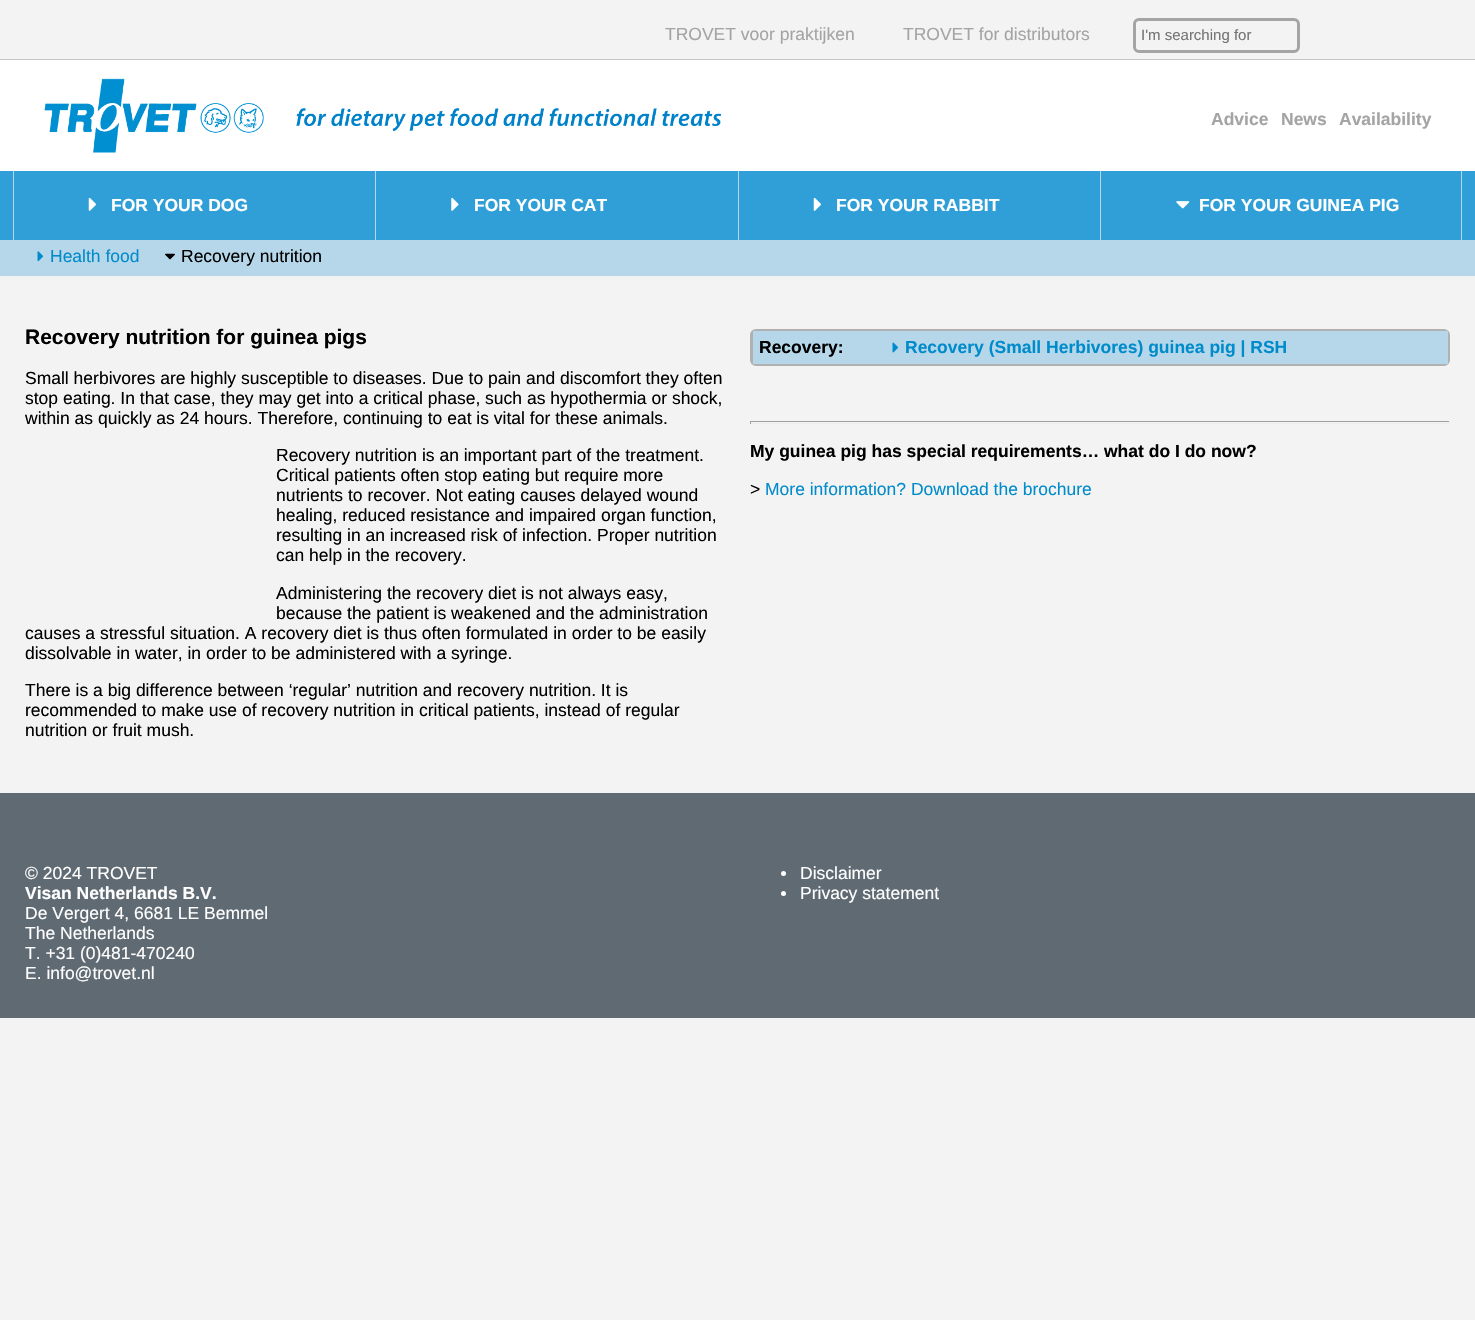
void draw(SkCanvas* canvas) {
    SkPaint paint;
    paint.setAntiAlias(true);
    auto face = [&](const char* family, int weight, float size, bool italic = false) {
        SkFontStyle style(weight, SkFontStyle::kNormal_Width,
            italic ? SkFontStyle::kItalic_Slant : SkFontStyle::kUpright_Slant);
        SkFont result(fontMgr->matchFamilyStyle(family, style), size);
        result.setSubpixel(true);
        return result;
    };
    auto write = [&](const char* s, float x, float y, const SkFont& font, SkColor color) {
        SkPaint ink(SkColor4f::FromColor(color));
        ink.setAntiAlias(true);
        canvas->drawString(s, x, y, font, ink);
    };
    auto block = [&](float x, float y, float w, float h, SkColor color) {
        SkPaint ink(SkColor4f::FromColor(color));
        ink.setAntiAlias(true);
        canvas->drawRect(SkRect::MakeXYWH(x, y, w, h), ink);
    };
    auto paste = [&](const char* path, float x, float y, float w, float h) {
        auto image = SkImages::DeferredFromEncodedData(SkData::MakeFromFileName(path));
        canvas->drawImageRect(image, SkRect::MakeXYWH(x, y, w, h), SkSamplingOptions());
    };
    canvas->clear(SkColorSetRGB(243, 243, 243));
    block(0, 59, 1475, 1, SkColorSetRGB(197, 197, 197));
    auto kFont1 = face("Liberation Sans", 400, 17.5f);
    write("TROVET voor praktijken", 665, 40, kFont1, SkColorSetRGB(164, 164, 164));
    write("TROVET for distributors", 903, 40, kFont1, SkColorSetRGB(164, 164, 164));
    paint.setStyle(SkPaint::kStroke_Style);
    paint.setStrokeWidth(3);
    paint.setColor(SkColorSetRGB(164, 164, 164));
    canvas->drawRoundRect(SkRect::MakeXYWH(1134.5f, 19.5f, 164, 32), 4.5f, 4.5f, paint);
    auto kFont2 = face("Liberation Sans", 400, 15);
    write("I'm searching for", 1141, 40, kFont2, SkColorSetRGB(117, 117, 117));
    block(0, 60, 1475, 111, SK_ColorWHITE);
    paste("pic1.png", 44, 78, 678, 75);
    auto kFont3 = face("Liberation Sans", 700, 17.5f);
    write("Advice", 1211, 125, kFont3, SkColorSetRGB(164, 164, 164));
    write("News", 1281, 125, kFont3, SkColorSetRGB(164, 164, 164));
    write("Availability", 1339, 125, kFont3, SkColorSetRGB(164, 164, 164));
    block(0, 171, 1475, 69, SkColorSetRGB(48, 159, 215));
    block(13, 171, 1, 69, SkColorSetRGB(182, 215, 234));
    paste("pic2.png", 88, 197, 8, 14);
    write("FOR YOUR DOG", 111, 211, kFont3, SK_ColorWHITE);
    block(375, 171, 1, 69, SkColorSetRGB(182, 215, 234));
    paste("pic3.png", 451, 197, 8, 14);
    write("FOR YOUR CAT", 474, 211, kFont3, SK_ColorWHITE);
    block(738, 171, 1, 69, SkColorSetRGB(182, 215, 234));
    paste("pic2.png", 813, 197, 8, 14);
    write("FOR YOUR RABBIT", 836, 211, kFont3, SK_ColorWHITE);
    block(1461, 171, 1, 69, SkColorSetRGB(182, 215, 234));
    block(1100, 171, 1, 69, SkColorSetRGB(182, 215, 234));
    paste("pic4.png", 1176, 201, 14, 8);
    write("FOR YOUR GUINEA PIG", 1199, 211, kFont3, SK_ColorWHITE);
    block(0, 240, 1475, 36, SkColorSetRGB(182, 215, 234));
    paste("pic5.png", 37, 251, 7, 11);
    write("Health food", 50, 262, kFont1, SkColorSetRGB(0, 139, 203));
    paste("pic6.png", 165, 253, 10, 7);
    write("Recovery nutrition", 181, 262, kFont1, SK_ColorBLACK);
    auto kFont4 = face("Liberation Sans", 700, 21);
    write("Recovery nutrition for guinea pigs", 25, 344, kFont4, SK_ColorBLACK);
    write("Small herbivores are highly susceptible to diseases. Due to pain and discomfort they often", 25, 384, kFont1, SK_ColorBLACK);
    write("stop eating. In that case, they may get into a critical phase, such as hypothermia or shock,", 25, 404, kFont1, SK_ColorBLACK);
    write("within as quickly as 24 hours. Therefore, continuing to eat is vital for these animals.", 25, 424, kFont1, SK_ColorBLACK);
    write("Recovery nutrition is an important part of the treatment.", 276, 461, kFont1, SK_ColorBLACK);
    write("Critical patients often stop eating but require more", 276, 481, kFont1, SK_ColorBLACK);
    write("nutrients to recover. Not eating causes delayed wound", 276, 501, kFont1, SK_ColorBLACK);
    write("healing, reduced resistance and impaired organ function,", 276, 521, kFont1, SK_ColorBLACK);
    write("resulting in an increased risk of infection. Proper nutrition", 276, 541, kFont1, SK_ColorBLACK);
    write("can help in the recovery.", 276, 561, kFont1, SK_ColorBLACK);
    write("Administering the recovery diet is not always easy,", 276, 599, kFont1, SK_ColorBLACK);
    write("because the patient is weakened and the administration", 276, 619, kFont1, SK_ColorBLACK);
    write("causes a stressful situation. A recovery diet is thus often formulated in order to be easily", 25, 639, kFont1, SK_ColorBLACK);
    write("dissolvable in water, in order to be administered with a syringe.", 25, 659, kFont1, SK_ColorBLACK);
    write("There is a big difference between ‘regular’ nutrition and recovery nutrition. It is", 25, 696, kFont1, SK_ColorBLACK);
    write("recommended to make use of recovery nutrition in critical patients, instead of regular", 25, 716, kFont1, SK_ColorBLACK);
    write("nutrition or fruit mush.", 25, 736, kFont1, SK_ColorBLACK);
    paint.setColor(SkColorSetRGB(177, 177, 177));
    canvas->drawRoundRect(SkRect::MakeXYWH(751.5f, 330.5f, 697, 34), 4.5f, 4.5f, paint);
    block(753, 331, 695, 33, SkColorSetRGB(182, 215, 234));
    write("Recovery:", 759, 353, kFont3, SK_ColorBLACK);
    paste("pic7.png", 892, 342, 7, 11);
    write("Recovery (Small Herbivores) guinea pig | RSH", 905, 353, kFont3, SkColorSetRGB(0, 139, 203));
    block(750, 421, 700, 1, SkColorSetRGB(159, 159, 159));
    block(1449, 421, 1, 3, SkColorSetRGB(238, 238, 238));
    block(750, 423, 700, 1, SkColorSetRGB(238, 238, 238));
    block(750, 421, 1, 3, SkColorSetRGB(159, 159, 159));
    write("My guinea pig has special requirements… what do I do now?", 750, 457, kFont3, SK_ColorBLACK);
    write(">", 750, 495, kFont1, SK_ColorBLACK);
    write("More information? Download the brochure", 765, 495, kFont1, SkColorSetRGB(0, 139, 203));
    block(0, 793, 1475, 225, SkColorSetRGB(96, 106, 115));
    write("© 2024 TROVET", 25, 879, kFont1, SK_ColorWHITE);
    write("Visan Netherlands B.V.", 25, 899, kFont3, SK_ColorWHITE);
    write("De Vergert 4, 6681 LE Bemmel", 25, 919, kFont1, SK_ColorWHITE);
    write("The Netherlands", 25, 939, kFont1, SK_ColorWHITE);
    write("T. +31 (0)481-470240", 25, 959, kFont1, SK_ColorWHITE);
    write("E. info@trovet.nl", 25, 979, kFont1, SK_ColorWHITE);
    paint.setStyle(SkPaint::kFill_Style);
    paint.setColor(SK_ColorWHITE);
    canvas->drawCircle(783.5f, 873.5f, 2.5f, paint);
    write("Disclaimer", 800, 879, kFont1, SK_ColorWHITE);
    canvas->drawCircle(783.5f, 893.5f, 2.5f, paint);
    write("Privacy statement", 800, 899, kFont1, SK_ColorWHITE);
}
